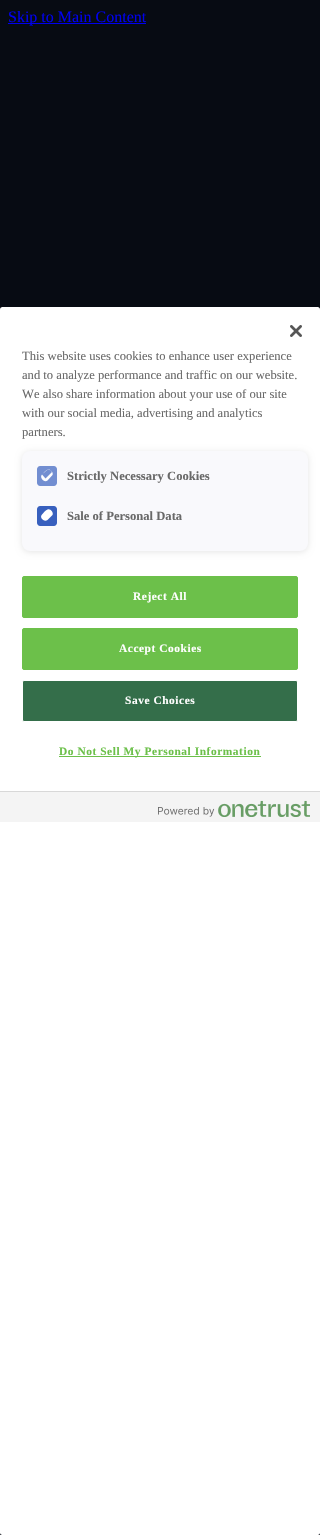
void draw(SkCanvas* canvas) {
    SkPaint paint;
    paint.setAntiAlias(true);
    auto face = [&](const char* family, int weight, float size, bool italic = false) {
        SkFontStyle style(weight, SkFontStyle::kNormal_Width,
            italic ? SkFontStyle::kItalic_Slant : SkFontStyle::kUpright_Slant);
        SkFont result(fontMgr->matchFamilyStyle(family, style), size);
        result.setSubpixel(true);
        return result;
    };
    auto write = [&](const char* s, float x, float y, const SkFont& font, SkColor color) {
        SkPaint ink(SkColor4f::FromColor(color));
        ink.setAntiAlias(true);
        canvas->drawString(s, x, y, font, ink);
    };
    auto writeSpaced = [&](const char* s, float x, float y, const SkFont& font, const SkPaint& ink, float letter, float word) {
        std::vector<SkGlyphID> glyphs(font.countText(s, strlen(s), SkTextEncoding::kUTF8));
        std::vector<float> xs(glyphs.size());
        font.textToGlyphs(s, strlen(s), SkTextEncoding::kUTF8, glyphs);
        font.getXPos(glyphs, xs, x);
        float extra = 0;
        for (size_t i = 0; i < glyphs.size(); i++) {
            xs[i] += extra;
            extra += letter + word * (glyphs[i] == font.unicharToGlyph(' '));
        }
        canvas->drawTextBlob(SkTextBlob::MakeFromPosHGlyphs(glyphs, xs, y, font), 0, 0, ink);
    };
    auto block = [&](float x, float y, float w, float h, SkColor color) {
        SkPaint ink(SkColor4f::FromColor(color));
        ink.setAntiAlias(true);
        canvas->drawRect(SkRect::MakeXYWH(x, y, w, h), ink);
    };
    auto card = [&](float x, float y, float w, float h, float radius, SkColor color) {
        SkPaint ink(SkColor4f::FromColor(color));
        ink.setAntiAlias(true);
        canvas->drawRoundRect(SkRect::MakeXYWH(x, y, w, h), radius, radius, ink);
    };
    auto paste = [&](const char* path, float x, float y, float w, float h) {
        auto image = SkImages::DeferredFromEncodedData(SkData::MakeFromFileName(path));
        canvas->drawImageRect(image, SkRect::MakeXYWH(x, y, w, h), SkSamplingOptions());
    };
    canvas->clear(SkColorSetRGB(7, 11, 19));
    block(8, 23, 138, 1, SkColorSetRGB(0, 0, 238));
    auto kFont1 = face("Liberation Serif", 400, 16);
    write("Skip to Main Content", 8, 22, kFont1, SkColorSetRGB(0, 0, 238));
    card(0, 307, 320, 1228, 2.5f, SK_ColorWHITE);
    paste("pic1.png", 290, 325, 12, 12);
    auto kFont2 = face("Liberation Serif", 400, 12.6f);
    write("This website uses cookies to enhance user experience", 22, 360, kFont2, SkColorSetRGB(105, 105, 105));
    write("and to analyze performance and traffic on our website.", 22, 379, kFont2, SkColorSetRGB(105, 105, 105));
    write("We also share information about your use of our site", 22, 398, kFont2, SkColorSetRGB(105, 105, 105));
    write("with our social media, advertising and analytics", 22, 417, kFont2, SkColorSetRGB(105, 105, 105));
    write("partners.", 22, 436, kFont2, SkColorSetRGB(105, 105, 105));
    paint.setColor(SkColorSetARGB(26, 0, 0, 0));
    paint.setMaskFilter(SkMaskFilter::MakeBlur(kNormal_SkBlurStyle, 3));
    canvas->drawRoundRect(SkRect::MakeXYWH(22, 452, 286, 100), 8, 8, paint);
    paint.setMaskFilter(nullptr);
    card(22, 451, 286, 100, 8, SkColorSetRGB(249, 249, 252));
    paint.setColor(SkColorSetRGB(114, 142, 209));
    canvas->drawPath(SkPathBuilder().moveTo(40, 466).lineTo(54, 466).cubicTo(55.5f, 466, 57, 467.5f, 57, 469).lineTo(57, 483).cubicTo(57, 484.5f, 55.5f, 486, 54, 486).lineTo(40, 486).cubicTo(38.5f, 486, 37, 484.5f, 37, 483).lineTo(37, 469).cubicTo(37, 467.5f, 38.5f, 466, 40, 466).close().detach(), paint);
    paint.setColor(SkColorSetRGB(253, 253, 254));
    canvas->drawPath(SkPathBuilder(SkPathFillType::kEvenOdd).moveTo(42, 474.5f).lineTo(46.5f, 470.5f).cubicTo(49, 468, 54, 472, 52.5f, 475).lineTo(47.5f, 480.5f).cubicTo(44.5f, 483.5f, 39, 477.5f, 42, 474.5f).close().moveTo(42, 474.5f).cubicTo(44, 473, 47, 468, 50, 470).lineTo(52, 472).lineTo(45.5f, 478.5f).close().detach(), paint);
    auto kFont3 = face("Liberation Serif", 700, 12.6f);
    write("Strictly Necessary Cookies", 67, 480, kFont3, SkColorSetRGB(105, 105, 105));
    paint.setColor(SkColorSetRGB(56, 96, 190));
    canvas->drawPath(SkPathBuilder().moveTo(40, 506).lineTo(54, 506).cubicTo(55.5f, 506, 57, 507.5f, 57, 509).lineTo(57, 523).cubicTo(57, 524.5f, 55.5f, 526, 54, 526).lineTo(40, 526).cubicTo(38.5f, 526, 37, 524.5f, 37, 523).lineTo(37, 509).cubicTo(37, 507.5f, 38.5f, 506, 40, 506).close().detach(), paint);
    paint.setColor(SK_ColorWHITE);
    canvas->drawPath(SkPathBuilder().moveTo(42, 514.5f).cubicTo(43.5f, 513, 45, 510.5f, 47.5f, 509.5f).cubicTo(50, 508, 54, 512.5f, 52.5f, 515).lineTo(47.5f, 520).cubicTo(44, 522.5f, 39, 517.5f, 42, 514.5f).close().detach(), paint);
    write("Sale of Personal Data", 67, 520, kFont3, SkColorSetRGB(105, 105, 105));
    paint.setColor(SkColorSetRGB(108, 192, 74));
    canvas->drawRoundRect(SkRect::MakeXYWH(22.5f, 576.5f, 275, 41), 1.5f, 1.5f, paint);
    paint.setStyle(SkPaint::kStroke_Style);
    paint.setStrokeWidth(1);
    canvas->drawRoundRect(SkRect::MakeXYWH(22.5f, 576.5f, 275, 41), 1.5f, 1.5f, paint);
    auto kFont4 = face("Liberation Serif", 700, 11.4f);
    paint.setStyle(SkPaint::kFill_Style);
    paint.setColor(SK_ColorWHITE);
    writeSpaced("Reject All", 133, 600, kFont4, paint, 0.55f, 0);
    paint.setColor(SkColorSetRGB(108, 192, 74));
    canvas->drawRoundRect(SkRect::MakeXYWH(22.5f, 628.5f, 275, 41), 1.5f, 1.5f, paint);
    paint.setStyle(SkPaint::kStroke_Style);
    canvas->drawRoundRect(SkRect::MakeXYWH(22.5f, 628.5f, 275, 41), 1.5f, 1.5f, paint);
    paint.setStyle(SkPaint::kFill_Style);
    paint.setColor(SK_ColorWHITE);
    writeSpaced("Accept Cookies", 119, 652, kFont4, paint, 0.55f, 0);
    paint.setColor(SkColorSetRGB(52, 110, 74));
    canvas->drawRoundRect(SkRect::MakeXYWH(22.5f, 680.5f, 275, 41), 1.5f, 1.5f, paint);
    paint.setStyle(SkPaint::kStroke_Style);
    paint.setColor(SK_ColorWHITE);
    canvas->drawRoundRect(SkRect::MakeXYWH(22.5f, 680.5f, 275, 41), 1.5f, 1.5f, paint);
    paint.setStyle(SkPaint::kFill_Style);
    writeSpaced("Save Choices", 125, 704, kFont4, paint, 0.55f, 0);
    block(59, 756, 202, 1, SkColorSetRGB(108, 192, 74));
    paint.setColor(SkColorSetRGB(108, 192, 74));
    writeSpaced("Do Not Sell My Personal Information", 59, 755, kFont4, paint, 0.55f, 0);
    block(0, 792, 320, 30, SkColorSetRGB(244, 244, 244));
    block(0, 791, 320, 1, SkColorSetRGB(216, 216, 216));
    paste("pic2.png", 158, 800, 152, 17);
}
